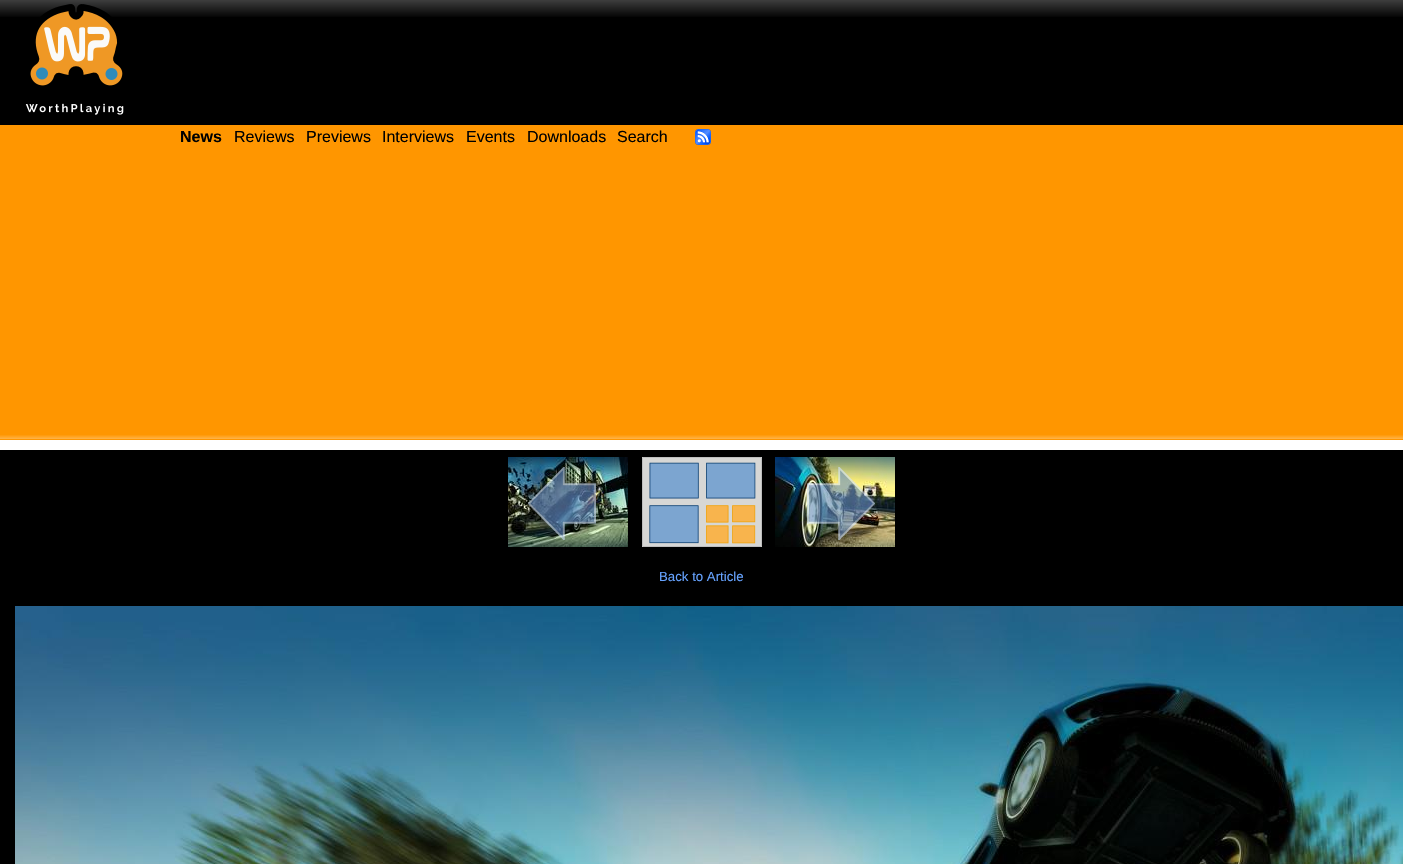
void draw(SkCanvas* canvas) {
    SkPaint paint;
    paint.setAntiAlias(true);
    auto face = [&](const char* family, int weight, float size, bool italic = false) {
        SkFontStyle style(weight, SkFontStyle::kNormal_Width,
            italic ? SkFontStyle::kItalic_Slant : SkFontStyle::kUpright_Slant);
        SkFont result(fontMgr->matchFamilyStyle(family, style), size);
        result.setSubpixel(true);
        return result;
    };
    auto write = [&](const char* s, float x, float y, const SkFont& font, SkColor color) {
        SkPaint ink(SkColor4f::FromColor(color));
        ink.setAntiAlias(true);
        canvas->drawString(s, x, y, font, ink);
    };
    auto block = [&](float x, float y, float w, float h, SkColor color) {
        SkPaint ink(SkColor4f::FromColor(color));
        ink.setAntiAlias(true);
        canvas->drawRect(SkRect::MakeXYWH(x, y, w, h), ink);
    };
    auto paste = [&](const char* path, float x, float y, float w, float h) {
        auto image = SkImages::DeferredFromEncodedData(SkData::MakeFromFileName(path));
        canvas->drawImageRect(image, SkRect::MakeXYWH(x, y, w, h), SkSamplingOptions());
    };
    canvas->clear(SK_ColorWHITE);
    block(0, 17, 1403, 108, SK_ColorBLACK);
    paste("pic1.png", 0, 0, 1403, 17);
    paste("pic2.png", 25, 4, 99, 111);
    block(0, 125, 1403, 315, SkColorSetRGB(255, 150, 0));
    paste("pic3.png", 0, 435, 1403, 4);
    auto kFont1 = face("Liberation Sans", 700, 16);
    write("News", 180, 142, kFont1, SK_ColorBLACK);
    auto kFont2 = face("Liberation Sans", 400, 16);
    write("Reviews", 234, 142, kFont2, SK_ColorBLACK);
    write("Previews", 306, 142, kFont2, SK_ColorBLACK);
    write("Interviews", 382, 142, kFont2, SK_ColorBLACK);
    write("Events", 466, 142, kFont2, SK_ColorBLACK);
    write("Downloads", 527, 142, kFont2, SK_ColorBLACK);
    write("Search", 617, 142, kFont2, SK_ColorBLACK);
    paste("pic4.png", 695, 129, 16, 16);
    block(0, 450, 1403, 414, SK_ColorBLACK);
    paste("pic5.png", 508, 457, 120, 90);
    paste("pic6.png", 528, 467, 68, 73);
    paste("pic7.png", 642, 457, 120, 90);
    paste("pic8.png", 775, 457, 120, 90);
    paste("pic9.png", 807, 467, 68, 73);
    auto kFont3 = face("Liberation Sans", 400, 13.25f);
    write("Back to Article", 659, 581, kFont3, SkColorSetRGB(102, 163, 255));
    paste("pic10.png", 15, 606, 1388, 258);
}
